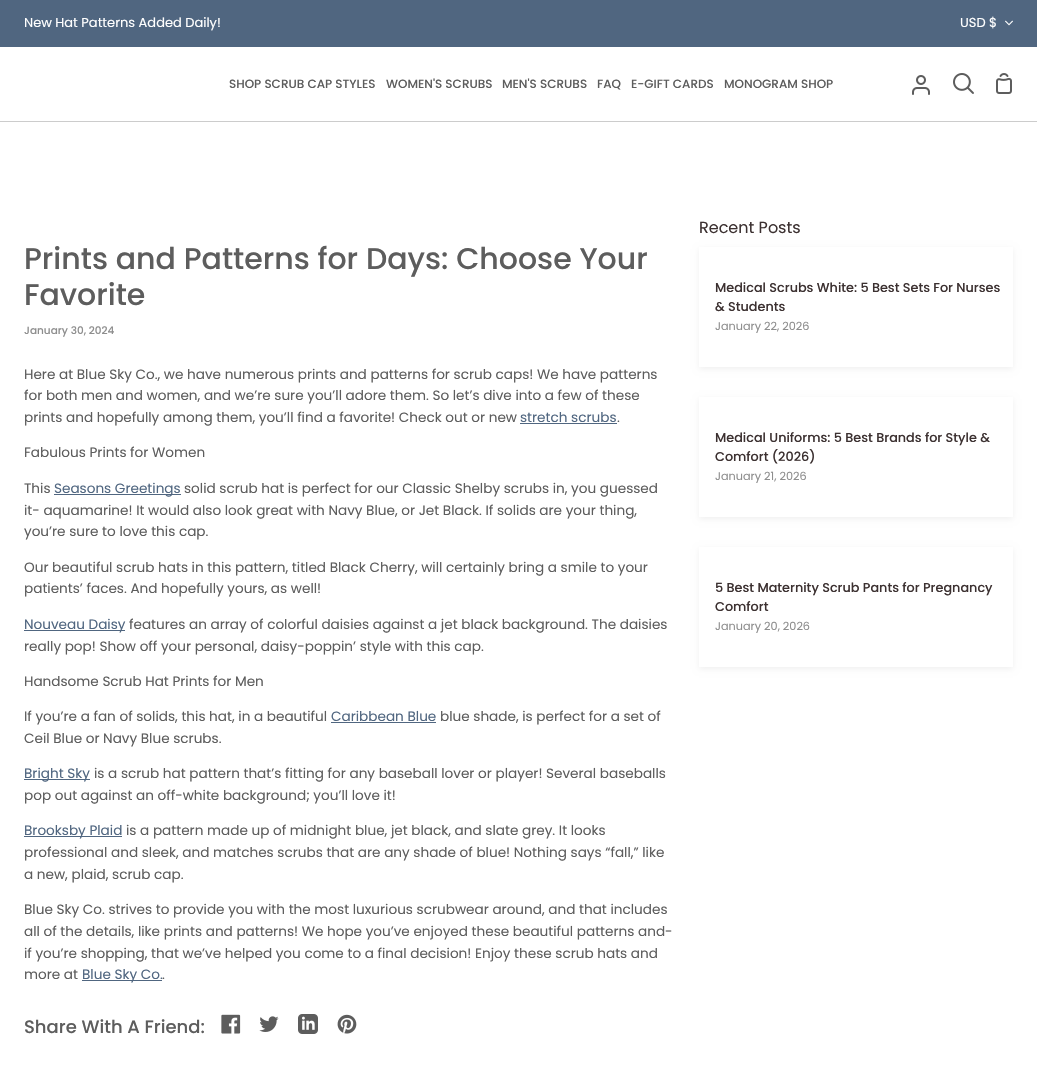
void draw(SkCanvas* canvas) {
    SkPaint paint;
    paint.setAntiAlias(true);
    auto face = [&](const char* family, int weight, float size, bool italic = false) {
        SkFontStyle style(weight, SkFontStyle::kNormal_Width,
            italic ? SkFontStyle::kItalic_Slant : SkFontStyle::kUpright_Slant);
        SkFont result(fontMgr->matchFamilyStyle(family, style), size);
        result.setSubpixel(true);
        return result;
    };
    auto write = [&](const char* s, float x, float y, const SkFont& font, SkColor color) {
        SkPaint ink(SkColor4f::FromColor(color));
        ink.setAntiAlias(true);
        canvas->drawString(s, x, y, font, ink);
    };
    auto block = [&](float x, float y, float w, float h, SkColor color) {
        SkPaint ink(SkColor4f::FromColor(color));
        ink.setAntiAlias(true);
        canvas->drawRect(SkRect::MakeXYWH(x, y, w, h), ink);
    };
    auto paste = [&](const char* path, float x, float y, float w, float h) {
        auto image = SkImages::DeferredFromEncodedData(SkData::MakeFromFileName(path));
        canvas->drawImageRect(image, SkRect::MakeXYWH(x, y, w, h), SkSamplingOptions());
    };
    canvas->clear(SK_ColorWHITE);
    block(0, 121, 1037, 1, SkColorSetRGB(204, 204, 204));
    block(0, 0, 1037, 47, SkColorSetRGB(80, 102, 128));
    auto kFont1 = face("Poppins", 400, 13);
    write("New Hat Patterns Added Daily!", 24, 27, kFont1, SK_ColorWHITE);
    write("USD $", 960, 27, kFont1, SK_ColorWHITE);
    paste("pic1.png", 1005, 20, 8, 6);
    auto kFont2 = face("Poppins", 500, 12);
    write("SHOP SCRUB CAP STYLES", 229, 88, kFont2, SkColorSetRGB(93, 93, 93));
    write("WOMEN'S SCRUBS", 386, 88, kFont2, SkColorSetRGB(93, 93, 93));
    write("MEN'S SCRUBS", 502, 88, kFont2, SkColorSetRGB(93, 93, 93));
    write("FAQ", 597, 88, kFont2, SkColorSetRGB(93, 93, 93));
    write("E-GIFT CARDS", 631, 88, kFont2, SkColorSetRGB(93, 93, 93));
    write("MONOGRAM SHOP", 724, 88, kFont2, SkColorSetRGB(93, 93, 93));
    paste("pic2.png", 912, 75, 18, 20);
    paste("pic3.png", 953, 73, 21, 21);
    paste("pic4.png", 996, 73, 16, 21);
    auto kFont3 = face("Poppins", 500, 30);
    write("Prints and Patterns for Days: Choose Your", 24, 269, kFont3, SkColorSetRGB(93, 93, 93));
    write("Favorite", 24, 305, kFont3, SkColorSetRGB(93, 93, 93));
    auto kFont4 = face("Poppins", 500, 10.5f);
    write("January 30, 2024", 24, 334, kFont4, SkColorSetRGB(142, 142, 142));
    auto kFont5 = face("Poppins", 400, 13.6f);
    write("Here at Blue Sky Co., we have numerous prints and patterns for scrub caps! We have patterns", 24, 379, kFont5, SkColorSetRGB(93, 93, 93));
    write("for both men and women, and we’re sure you’ll adore them. So let’s dive into a few of these", 24, 400, kFont5, SkColorSetRGB(93, 93, 93));
    write("prints and hopefully among them, you’ll find a favorite! Check out or new", 24, 422, kFont5, SkColorSetRGB(93, 93, 93));
    write("stretch scrubs", 520, 422, kFont5, SkColorSetRGB(80, 102, 128));
    block(520, 423, 97, 1, SkColorSetRGB(80, 102, 128));
    write(".", 617, 422, kFont5, SkColorSetRGB(93, 93, 93));
    write("Fabulous Prints for Women", 24, 457, kFont5, SkColorSetRGB(93, 93, 93));
    write("This", 24, 493, kFont5, SkColorSetRGB(93, 93, 93));
    block(54, 494, 127, 1, SkColorSetRGB(80, 102, 128));
    write("Seasons Greetings", 54, 493, kFont5, SkColorSetRGB(80, 102, 128));
    write("solid scrub hat is perfect for our Classic Shelby scrubs in, you guessed", 184, 493, kFont5, SkColorSetRGB(93, 93, 93));
    write("it- aquamarine! It would also look great with Navy Blue, or Jet Black. If solids are your thing,", 24, 515, kFont5, SkColorSetRGB(93, 93, 93));
    write("you’re sure to love this cap.", 24, 536, kFont5, SkColorSetRGB(93, 93, 93));
    write("Our beautiful scrub hats in this pattern, titled Black Cherry, will certainly bring a smile to your", 24, 572, kFont5, SkColorSetRGB(93, 93, 93));
    write("patients’ faces. And hopefully yours, as well!", 24, 593, kFont5, SkColorSetRGB(93, 93, 93));
    block(24, 630, 101, 1, SkColorSetRGB(80, 102, 128));
    write("Nouveau Daisy", 24, 629, kFont5, SkColorSetRGB(80, 102, 128));
    write("features an array of colorful daisies against a jet black background. The daisies", 129, 629, kFont5, SkColorSetRGB(93, 93, 93));
    write("really pop! Show off your personal, daisy-poppin’ style with this cap.", 24, 651, kFont5, SkColorSetRGB(93, 93, 93));
    write("Handsome Scrub Hat Prints for Men", 24, 686, kFont5, SkColorSetRGB(93, 93, 93));
    write("If you’re a fan of solids, this hat, in a beautiful", 24, 721, kFont5, SkColorSetRGB(93, 93, 93));
    write("Caribbean Blue", 331, 721, kFont5, SkColorSetRGB(80, 102, 128));
    block(331, 722, 105, 1, SkColorSetRGB(80, 102, 128));
    write("blue shade, is perfect for a set of", 440, 721, kFont5, SkColorSetRGB(93, 93, 93));
    write("Ceil Blue or Navy Blue scrubs.", 24, 743, kFont5, SkColorSetRGB(93, 93, 93));
    block(24, 779, 66, 1, SkColorSetRGB(80, 102, 128));
    write("Bright Sky", 24, 778, kFont5, SkColorSetRGB(80, 102, 128));
    write("is a scrub hat pattern that’s fitting for any baseball lover or player! Several baseballs", 94, 778, kFont5, SkColorSetRGB(93, 93, 93));
    write("pop out against an off-white background; you’ll love it!", 24, 800, kFont5, SkColorSetRGB(93, 93, 93));
    block(24, 836, 98, 1, SkColorSetRGB(80, 102, 128));
    write("Brooksby Plaid", 24, 835, kFont5, SkColorSetRGB(80, 102, 128));
    write("is a pattern made up of midnight blue, jet black, and slate grey. It looks", 126, 835, kFont5, SkColorSetRGB(93, 93, 93));
    write("professional and sleek, and matches scrubs that are any shade of blue! Nothing says “fall,” like", 24, 857, kFont5, SkColorSetRGB(93, 93, 93));
    write("a new, plaid, scrub cap.", 24, 879, kFont5, SkColorSetRGB(93, 93, 93));
    write("Blue Sky Co. strives to provide you with the most luxurious scrubwear around, and that includes", 24, 914, kFont5, SkColorSetRGB(93, 93, 93));
    write("all of the details, like prints and patterns! We hope you’ve enjoyed these beautiful patterns and-", 24, 936, kFont5, SkColorSetRGB(93, 93, 93));
    write("if you’re shopping, that we’ve helped you come to a final decision! Enjoy these scrub hats and", 24, 958, kFont5, SkColorSetRGB(93, 93, 93));
    write("more at", 24, 979, kFont5, SkColorSetRGB(93, 93, 93));
    block(82, 980, 80, 1, SkColorSetRGB(80, 102, 128));
    write("Blue Sky Co.", 82, 979, kFont5, SkColorSetRGB(80, 102, 128));
    write(".", 162, 979, kFont5, SkColorSetRGB(93, 93, 93));
    auto kFont6 = face("Poppins", 500, 18);
    write("Share With A Friend:", 24, 1033, kFont6, SkColorSetRGB(93, 93, 93));
    paste("pic5.png", 221, 1014, 20, 20);
    paste("pic6.png", 259, 1016, 20, 16);
    paste("pic7.png", 298, 1014, 20, 20);
    paste("pic8.png", 337, 1014, 20, 20);
    auto kFont7 = face("Poppins", 400, 16);
    write("Recent Posts", 699, 233, kFont7, SkColorSetRGB(60, 49, 49));
    canvas->save();
    canvas->clipPath(SkPathBuilder(SkPathFillType::kEvenOdd).moveTo(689, 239).lineTo(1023, 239).lineTo(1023, 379).lineTo(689, 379).close().moveTo(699, 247).lineTo(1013, 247).lineTo(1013, 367).lineTo(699, 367).close().detach(), true);
    paint.setColor(SkColorSetARGB(15, 0, 0, 0));
    paint.setMaskFilter(SkMaskFilter::MakeBlur(kNormal_SkBlurStyle, 3));
    canvas->drawRect(SkRect::MakeXYWH(699, 249, 314, 120), paint);
    paint.setMaskFilter(nullptr);
    canvas->restore();
    auto kFont8 = face("Poppins", 500, 12.8f);
    write("Medical Scrubs White: 5 Best Sets For Nurses", 715, 292, kFont8, SkColorSetRGB(60, 49, 49));
    write("& Students", 715, 311, kFont8, SkColorSetRGB(60, 49, 49));
    auto kFont9 = face("Poppins", 400, 11.25f);
    write("January 22, 2026", 715, 330, kFont9, SkColorSetRGB(142, 142, 142));
    canvas->save();
    canvas->clipPath(SkPathBuilder(SkPathFillType::kEvenOdd).moveTo(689, 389).lineTo(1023, 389).lineTo(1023, 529).lineTo(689, 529).close().moveTo(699, 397).lineTo(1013, 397).lineTo(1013, 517).lineTo(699, 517).close().detach(), true);
    paint.setMaskFilter(SkMaskFilter::MakeBlur(kNormal_SkBlurStyle, 3));
    canvas->drawRect(SkRect::MakeXYWH(699, 399, 314, 120), paint);
    paint.setMaskFilter(nullptr);
    canvas->restore();
    write("Medical Uniforms: 5 Best Brands for Style &", 715, 442, kFont8, SkColorSetRGB(60, 49, 49));
    write("Comfort (2026)", 715, 461, kFont8, SkColorSetRGB(60, 49, 49));
    write("January 21, 2026", 715, 480, kFont9, SkColorSetRGB(142, 142, 142));
    canvas->save();
    canvas->clipPath(SkPathBuilder(SkPathFillType::kEvenOdd).moveTo(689, 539).lineTo(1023, 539).lineTo(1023, 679).lineTo(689, 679).close().moveTo(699, 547).lineTo(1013, 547).lineTo(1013, 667).lineTo(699, 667).close().detach(), true);
    paint.setMaskFilter(SkMaskFilter::MakeBlur(kNormal_SkBlurStyle, 3));
    canvas->drawRect(SkRect::MakeXYWH(699, 549, 314, 120), paint);
    paint.setMaskFilter(nullptr);
    canvas->restore();
    write("5 Best Maternity Scrub Pants for Pregnancy", 715, 592, kFont8, SkColorSetRGB(60, 49, 49));
    write("Comfort", 715, 611, kFont8, SkColorSetRGB(60, 49, 49));
    write("January 20, 2026", 715, 630, kFont9, SkColorSetRGB(142, 142, 142));
}
